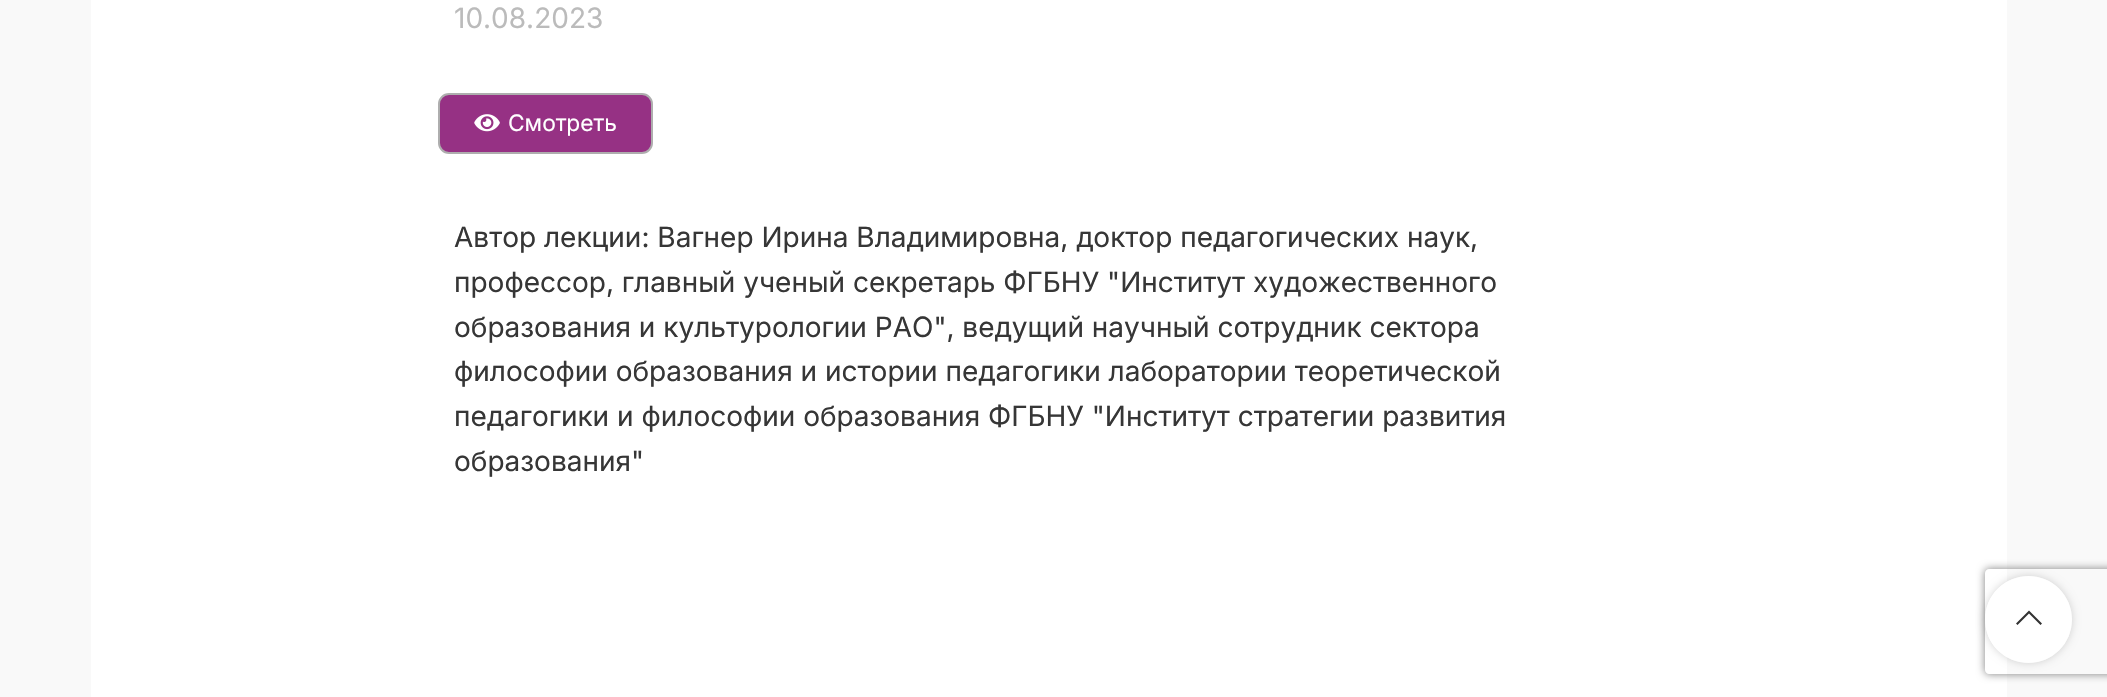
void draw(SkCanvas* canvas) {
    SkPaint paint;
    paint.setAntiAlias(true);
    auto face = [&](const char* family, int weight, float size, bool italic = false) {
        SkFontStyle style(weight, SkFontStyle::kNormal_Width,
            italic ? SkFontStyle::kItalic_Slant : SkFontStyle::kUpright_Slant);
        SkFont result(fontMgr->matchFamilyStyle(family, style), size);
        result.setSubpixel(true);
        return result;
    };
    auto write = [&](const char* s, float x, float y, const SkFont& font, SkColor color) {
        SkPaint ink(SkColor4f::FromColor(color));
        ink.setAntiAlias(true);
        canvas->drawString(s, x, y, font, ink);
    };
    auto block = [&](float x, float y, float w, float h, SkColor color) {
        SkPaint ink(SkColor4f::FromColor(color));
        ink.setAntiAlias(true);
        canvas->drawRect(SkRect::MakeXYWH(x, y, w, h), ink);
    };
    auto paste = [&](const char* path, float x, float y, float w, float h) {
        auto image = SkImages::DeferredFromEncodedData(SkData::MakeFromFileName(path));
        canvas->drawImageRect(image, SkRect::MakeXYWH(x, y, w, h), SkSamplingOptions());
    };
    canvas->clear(SkColorSetRGB(249, 249, 249));
    block(91, 0, 1916, 697, SK_ColorWHITE);
    auto kFont1 = face("Inter", 400, 28);
    write("10.08.2023", 454, 28, kFont1, SkColorSetRGB(187, 187, 187));
    paint.setColor(SkColorSetRGB(150, 49, 132));
    canvas->drawRoundRect(SkRect::MakeXYWH(439, 94, 213, 59), 10, 10, paint);
    paint.setStyle(SkPaint::kStroke_Style);
    paint.setStrokeWidth(2);
    paint.setColor(SkColorSetRGB(174, 174, 174));
    canvas->drawRoundRect(SkRect::MakeXYWH(439, 94, 213, 59), 10, 10, paint);
    paste("pic1.png", 474, 114, 26, 18);
    auto kFont2 = face("Inter", 400, 22.75f);
    write("Смотреть", 508, 131, kFont2, SK_ColorWHITE);
    write("Автор лекции: Вагнер Ирина Владимировна, доктор педагогических наук,", 454, 247, kFont1, SkColorSetRGB(54, 54, 54));
    write("профессор, главный ученый секретарь ФГБНУ \"Институт художественного", 454, 292, kFont1, SkColorSetRGB(54, 54, 54));
    write("образования и культурологии РАО\", ведущий научный сотрудник сектора", 454, 337, kFont1, SkColorSetRGB(54, 54, 54));
    write("философии образования и истории педагогики лаборатории теоретической", 454, 381, kFont1, SkColorSetRGB(54, 54, 54));
    write("педагогики и философии образования ФГБНУ \"Институт стратегии развития", 454, 426, kFont1, SkColorSetRGB(54, 54, 54));
    write("образования\"", 454, 471, kFont1, SkColorSetRGB(54, 54, 54));
    canvas->save();
    canvas->clipPath(SkPathBuilder(SkPathFillType::kEvenOdd).moveTo(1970, 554).lineTo(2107, 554).lineTo(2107, 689).lineTo(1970, 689).close().moveTo(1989, 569).lineTo(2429, 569).cubicTo(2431, 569, 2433, 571, 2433, 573).lineTo(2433, 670).cubicTo(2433, 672, 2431, 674, 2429, 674).lineTo(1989, 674).cubicTo(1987, 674, 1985, 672, 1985, 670).lineTo(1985, 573).cubicTo(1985, 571, 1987, 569, 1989, 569).close().detach(), true);
    paint.setStyle(SkPaint::kFill_Style);
    paint.setColor(SkColorSetRGB(128, 128, 128));
    paint.setMaskFilter(SkMaskFilter::MakeBlur(kNormal_SkBlurStyle, 4.5f));
    canvas->drawRoundRect(SkRect::MakeXYWH(1985, 569, 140, 105), 4, 4, paint);
    paint.setMaskFilter(nullptr);
    canvas->restore();
    canvas->save();
    canvas->clipPath(SkPathBuilder(SkPathFillType::kEvenOdd).moveTo(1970, 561).lineTo(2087, 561).lineTo(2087, 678).lineTo(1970, 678).close().moveTo(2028.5f, 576).cubicTo(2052.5f, 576, 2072, 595.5f, 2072, 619.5f).cubicTo(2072, 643.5f, 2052.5f, 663, 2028.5f, 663).cubicTo(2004.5f, 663, 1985, 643.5f, 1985, 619.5f).cubicTo(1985, 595.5f, 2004.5f, 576, 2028.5f, 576).close().detach(), true);
    paint.setColor(SkColorSetARGB(43, 0, 0, 0));
    paint.setMaskFilter(SkMaskFilter::MakeBlur(kNormal_SkBlurStyle, 4.5f));
    canvas->drawRoundRect(SkRect::MakeXYWH(1985, 576, 87, 87), 43.5f, 43.5f, paint);
    paint.setMaskFilter(nullptr);
    canvas->restore();
    paint.setColor(SkColorSetARGB(230, 255, 255, 255));
    canvas->drawCircle(2028.5f, 619.5f, 43.5f, paint);
    paint.setColor(SkColorSetRGB(51, 51, 51));
    canvas->drawPath(SkPathBuilder().moveTo(2040.5f, 625).lineTo(2042, 623.5f).lineTo(2029, 610.5f).lineTo(2016, 623.5f).lineTo(2017.5f, 625).lineTo(2029, 613.5f).close().detach(), paint);
}
